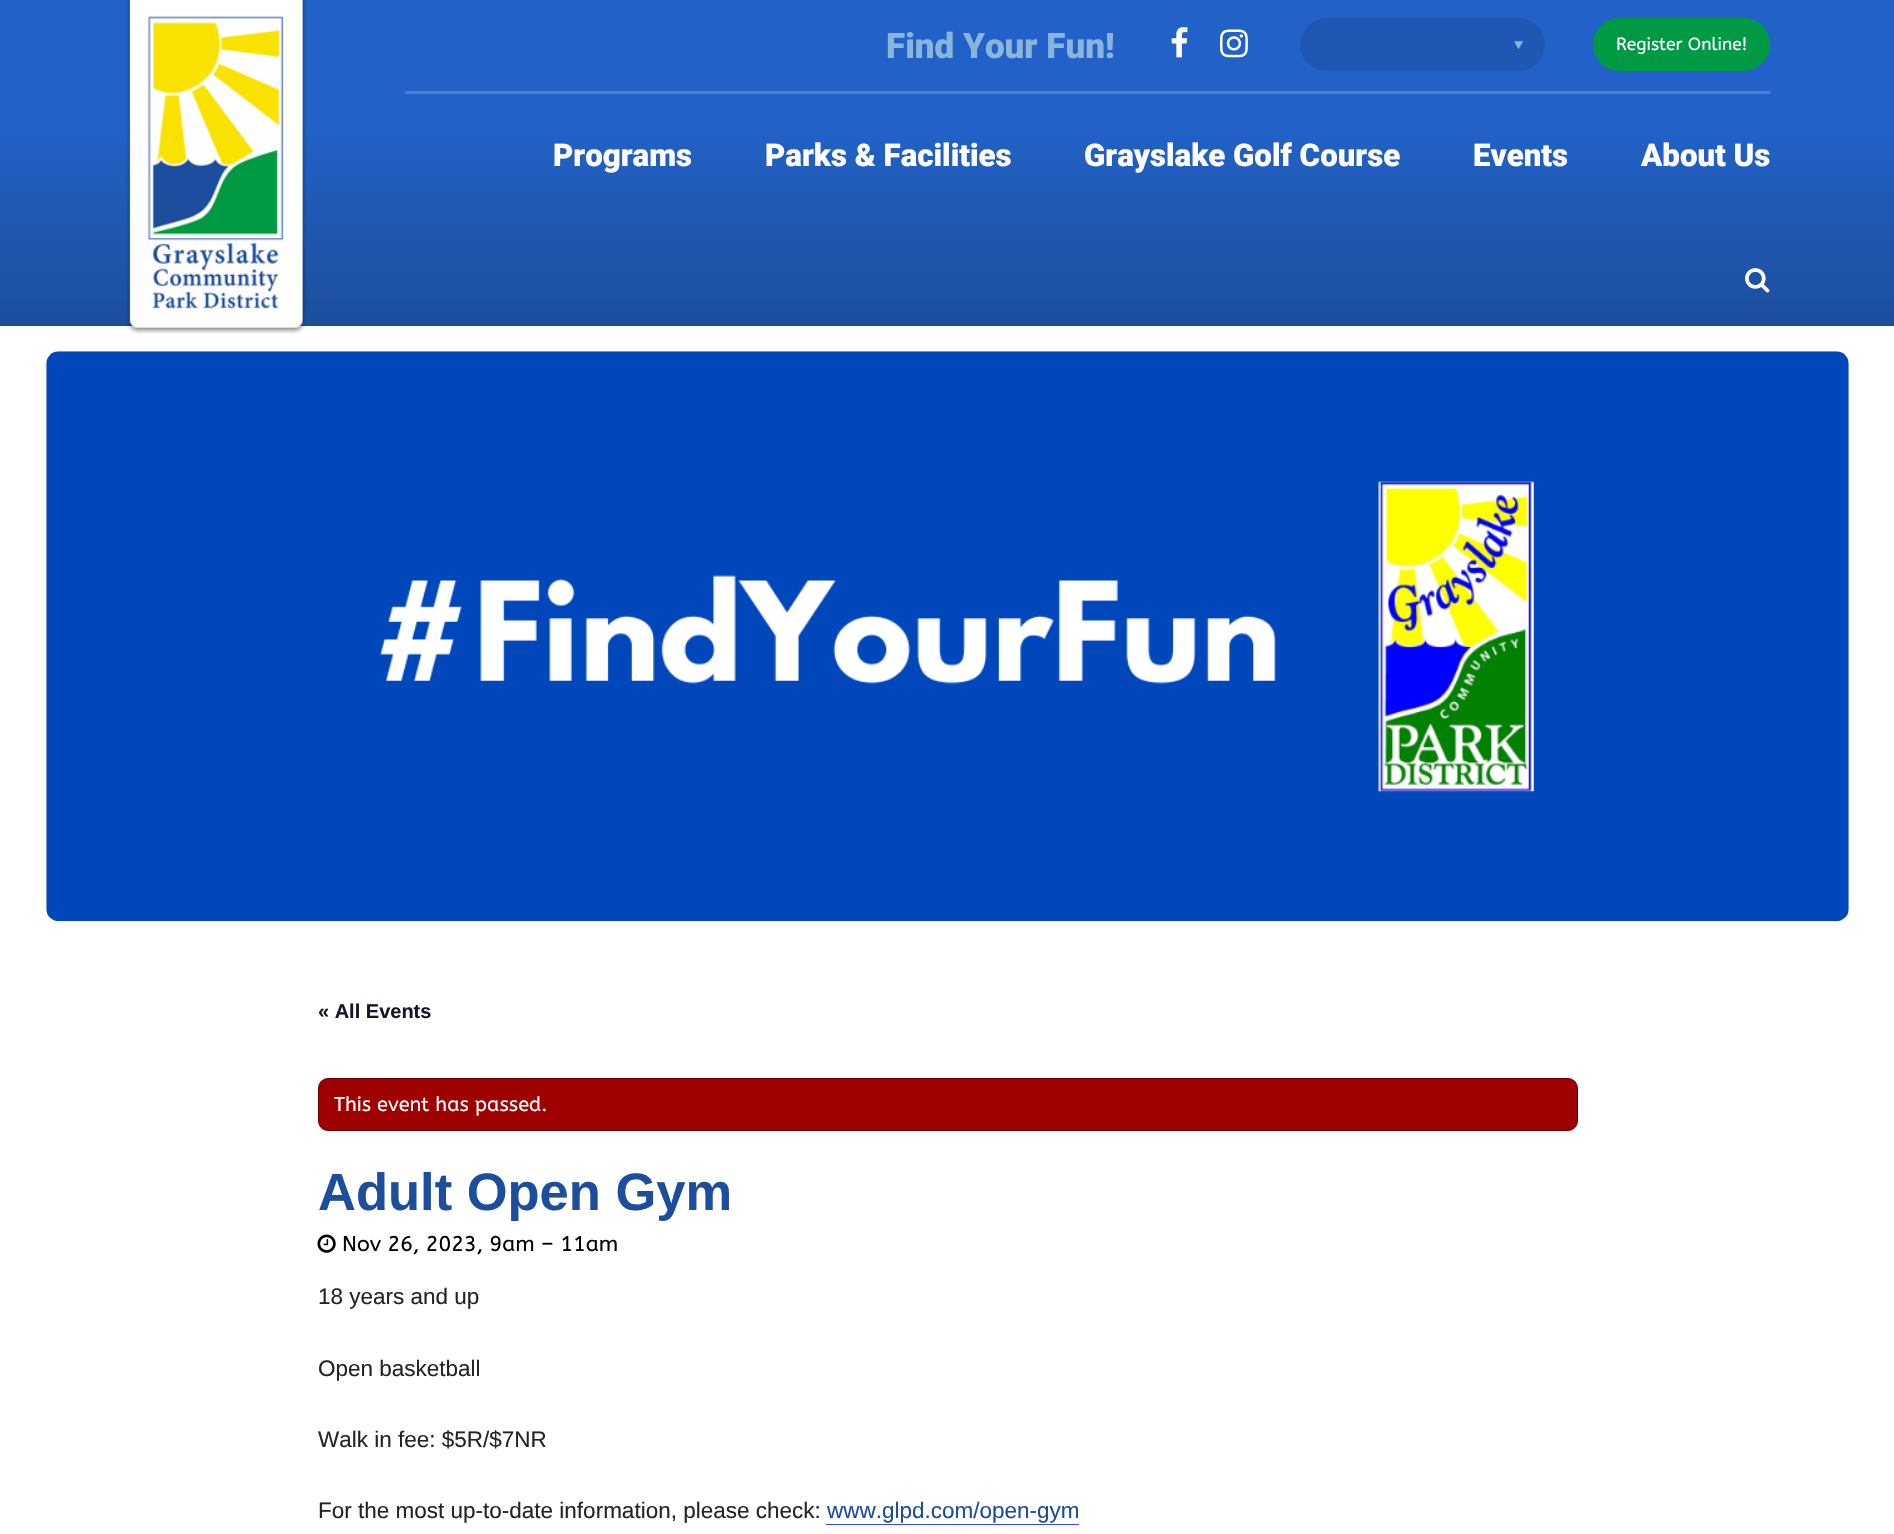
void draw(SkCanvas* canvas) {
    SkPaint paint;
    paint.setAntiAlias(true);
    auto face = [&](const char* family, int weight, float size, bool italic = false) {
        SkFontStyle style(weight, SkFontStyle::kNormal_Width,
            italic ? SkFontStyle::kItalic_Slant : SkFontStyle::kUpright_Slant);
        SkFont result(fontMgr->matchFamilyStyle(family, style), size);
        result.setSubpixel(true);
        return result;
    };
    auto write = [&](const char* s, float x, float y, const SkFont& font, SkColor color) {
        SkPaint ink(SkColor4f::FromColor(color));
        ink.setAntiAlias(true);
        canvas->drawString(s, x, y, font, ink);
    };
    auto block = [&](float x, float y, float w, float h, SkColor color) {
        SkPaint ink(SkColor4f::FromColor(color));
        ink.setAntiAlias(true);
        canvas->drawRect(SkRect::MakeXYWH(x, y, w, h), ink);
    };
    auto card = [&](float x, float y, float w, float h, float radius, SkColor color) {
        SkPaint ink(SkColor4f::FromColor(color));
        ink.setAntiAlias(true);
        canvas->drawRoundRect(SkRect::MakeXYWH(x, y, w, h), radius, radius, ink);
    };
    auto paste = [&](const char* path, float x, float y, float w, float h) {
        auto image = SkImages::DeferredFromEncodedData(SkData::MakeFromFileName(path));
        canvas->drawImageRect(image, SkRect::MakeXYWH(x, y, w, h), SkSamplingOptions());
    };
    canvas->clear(SK_ColorWHITE);
    {
        const SkColor colors[] = {SkColorSetRGB(34, 98, 200), SkColorSetRGB(28, 78, 157)};
        const float stops[] = {0.37f, 1};
        const SkPoint ends[] = {{948, 0}, {948, 326}};
        paint.setShader(SkGradientShader::MakeLinear(ends, colors, stops, 2, SkTileMode::kClamp));
        paint.setAlpha(255);
    }
    canvas->drawRect(SkRect::MakeXYWH(0, 0, 1894, 326), paint);
    paste("pic1.png", 126, 0, 181, 334);
    block(405, 91, 1365, 3, SkColorSetRGB(76, 125, 204));
    auto kFont1 = face("Roboto", 900, 35);
    write("Find Your Fun!", 886, 58, kFont1, SkColorSetRGB(138, 181, 219));
    paste("pic2.png", 1171, 27, 17, 31);
    paste("pic3.png", 1220, 29, 28, 29);
    card(1300, 18, 245, 53, 26.5f, SkColorSetRGB(31, 88, 178));
    paste("pic4.png", 1514, 41, 9, 8);
    card(1593, 18, 177, 53, 26.5f, SkColorSetRGB(0, 153, 68));
    auto kFont2 = face("ABeeZee", 400, 17.5f);
    write("Register Online!", 1616, 50, kFont2, SK_ColorWHITE);
    auto kFont3 = face("Roboto", 900, 31.25f);
    write("Programs", 553, 166, kFont3, SK_ColorWHITE);
    write("Parks & Facilities", 765, 166, kFont3, SK_ColorWHITE);
    write("Grayslake Golf Course", 1084, 166, kFont3, SK_ColorWHITE);
    write("Events", 1473, 166, kFont3, SK_ColorWHITE);
    write("About Us", 1641, 166, kFont3, SK_ColorWHITE);
    paste("pic5.png", 1745, 268, 25, 25);
    paste("pic6.png", 46, 351, 1803, 571);
    auto kFont4 = face("Liberation Sans", 700, 20);
    write("« All Events", 318, 1018, kFont4, SkColorSetRGB(20, 24, 39));
    paint.setShader(nullptr);
    paint.setColor(SkColorSetRGB(159, 0, 0));
    canvas->drawRoundRect(SkRect::MakeXYWH(318.5f, 1078.5f, 1259, 52), 9.5f, 9.5f, paint);
    paint.setStyle(SkPaint::kStroke_Style);
    paint.setStrokeWidth(1);
    paint.setColor(SkColorSetRGB(108, 0, 0));
    canvas->drawRoundRect(SkRect::MakeXYWH(318.5f, 1078.5f, 1259, 52), 9.5f, 9.5f, paint);
    auto kFont5 = face("ABeeZee", 400, 20);
    write("This event has passed.", 334, 1111, kFont5, SK_ColorWHITE);
    auto kFont6 = face("Liberation Sans", 700, 52.5f);
    write("Adult Open Gym", 318, 1210, kFont6, SkColorSetRGB(28, 78, 157));
    paste("pic7.png", 317, 1234, 19, 19);
    auto kFont7 = face("ABeeZee", 400, 21.25f);
    write("Nov 26, 2023, 9am – 11am", 342, 1251, kFont7, SK_ColorBLACK);
    auto kFont8 = face("Liberation Sans", 400, 22.5f);
    write("18 years and up", 318, 1304, kFont8, SkColorSetRGB(36, 36, 36));
    write("Open basketball", 318, 1376, kFont8, SkColorSetRGB(36, 36, 36));
    write("Walk in fee: $5R/$7NR", 318, 1447, kFont8, SkColorSetRGB(36, 36, 36));
    write("For the most up-to-date information, please check:", 318, 1518, kFont8, SkColorSetRGB(36, 36, 36));
    write("www.glpd.com/open-gym", 827, 1518, kFont8, SkColorSetRGB(28, 78, 157));
    block(826, 1524, 253, 1, SkColorSetRGB(51, 74, 255));
}
